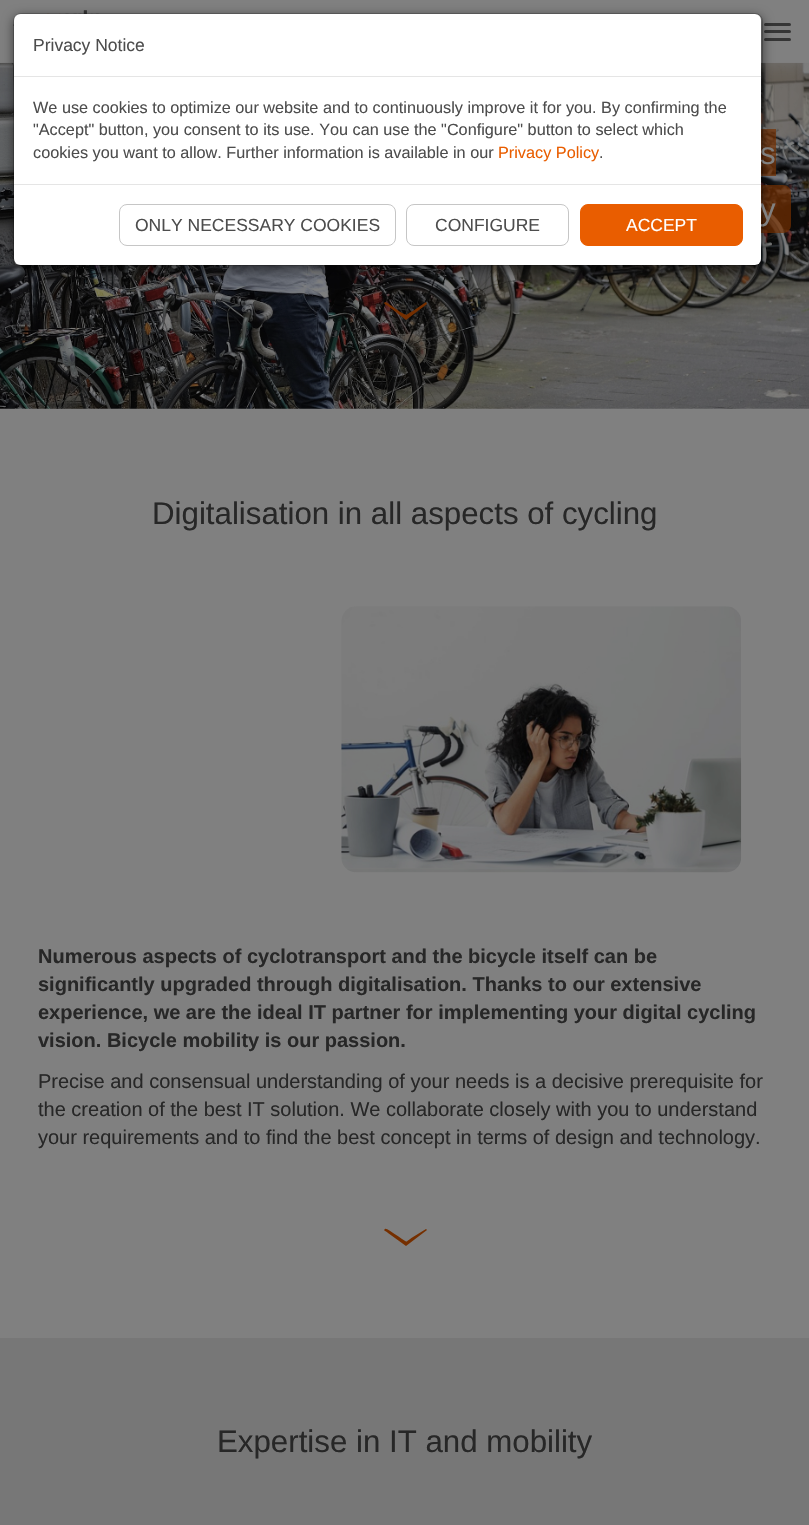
void draw(SkCanvas* canvas) {
    SkPaint paint;
    paint.setAntiAlias(true);
    auto face = [&](const char* family, int weight, float size, bool italic = false) {
        SkFontStyle style(weight, SkFontStyle::kNormal_Width,
            italic ? SkFontStyle::kItalic_Slant : SkFontStyle::kUpright_Slant);
        SkFont result(fontMgr->matchFamilyStyle(family, style), size);
        result.setSubpixel(true);
        return result;
    };
    auto write = [&](const char* s, float x, float y, const SkFont& font, SkColor color) {
        SkPaint ink(SkColor4f::FromColor(color));
        ink.setAntiAlias(true);
        canvas->drawString(s, x, y, font, ink);
    };
    auto block = [&](float x, float y, float w, float h, SkColor color) {
        SkPaint ink(SkColor4f::FromColor(color));
        ink.setAntiAlias(true);
        canvas->drawRect(SkRect::MakeXYWH(x, y, w, h), ink);
    };
    auto card = [&](float x, float y, float w, float h, float radius, SkColor color) {
        SkPaint ink(SkColor4f::FromColor(color));
        ink.setAntiAlias(true);
        canvas->drawRoundRect(SkRect::MakeXYWH(x, y, w, h), radius, radius, ink);
    };
    auto paste = [&](const char* path, float x, float y, float w, float h) {
        auto image = SkImages::DeferredFromEncodedData(SkData::MakeFromFileName(path));
        canvas->drawImageRect(image, SkRect::MakeXYWH(x, y, w, h), SkSamplingOptions());
    };
    canvas->clear(SkColorSetRGB(128, 128, 128));
    paste("pic2.png", 0, 62, 809, 347);
    block(0, 62, 804, 1, SkColorSetARGB(230, 128, 128, 128));
    canvas->save();
    canvas->clipPath(SkPathBuilder(SkPathFillType::kEvenOdd).moveTo(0, 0).lineTo(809, 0).lineTo(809, 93).lineTo(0, 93).close().moveTo(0, 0).lineTo(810, 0).lineTo(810, 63).lineTo(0, 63).close().detach(), true);
    paint.setColor(SkColorSetRGB(115, 115, 115));
    paint.setMaskFilter(SkMaskFilter::MakeBlur(kNormal_SkBlurStyle, 9.5f));
    canvas->drawRect(SkRect::MakeXYWH(0, 0, 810, 63), paint);
    paint.setMaskFilter(nullptr);
    canvas->restore();
    paste("pic1.png", 13, 10, 86, 16);
    card(764, 23, 27, 3, 1.5f, SkColorSetRGB(53, 53, 53));
    card(764, 30, 27, 3, 1.5f, SkColorSetRGB(53, 53, 53));
    card(764, 38, 27, 3, 1.5f, SkColorSetRGB(53, 53, 53));
    block(761, 129, 15, 47, SkColorSetARGB(179, 117, 47, 0));
    paint.setColor(SkColorSetARGB(179, 117, 47, 0));
    canvas->drawPath(SkPathBuilder().moveTo(520, 185).lineTo(783, 185).cubicTo(787.5f, 185, 791, 188.5f, 791, 193).lineTo(791, 225).cubicTo(791, 229.5f, 787.5f, 233, 783, 233).lineTo(520, 233).close().detach(), paint);
    paint.setColor(SkColorSetARGB(128, 0, 0, 0));
    paint.setMaskFilter(SkMaskFilter::MakeBlur(kNormal_SkBlurStyle, 5.5f));
    canvas->drawRoundRect(SkRect::MakeXYWH(13, 16, 750, 254), 8, 8, paint);
    paint.setMaskFilter(nullptr);
    auto kFont1 = face("Liberation Sans", 400, 31.25f);
    write("s", 760, 164, kFont1, SkColorSetRGB(128, 128, 128));
    write("y", 760, 220, kFont1, SkColorSetRGB(128, 128, 128));
    card(14, 14, 747, 251, 6, SK_ColorWHITE);
    paint.setStyle(SkPaint::kStroke_Style);
    paint.setStrokeWidth(1);
    paint.setColor(SkColorSetARGB(51, 0, 0, 0));
    canvas->drawRoundRect(SkRect::MakeXYWH(13.5f, 13.5f, 749, 252), 7.5f, 7.5f, paint);
    block(14, 76, 747, 1, SkColorSetRGB(229, 229, 229));
    auto kFont2 = face("Liberation Sans", 400, 17.5f);
    write("Privacy Notice", 33, 51, kFont2, SkColorSetRGB(77, 77, 77));
    auto kFont3 = face("Liberation Sans", 400, 16.25f);
    write("We use cookies to optimize our website and to continuously improve it for you. By confirming the", 33, 113, kFont3, SkColorSetRGB(77, 77, 77));
    write("\"Accept\" button, you consent to its use. You can use the \"Configure\" button to select which", 33, 135, kFont3, SkColorSetRGB(77, 77, 77));
    write("cookies you want to allow. Further information is available in our", 33, 158, kFont3, SkColorSetRGB(77, 77, 77));
    write("Privacy Policy", 498, 158, kFont3, SkColorSetRGB(233, 93, 0));
    write(".", 599, 158, kFont3, SkColorSetRGB(77, 77, 77));
    block(14, 184, 747, 1, SkColorSetRGB(229, 229, 229));
    paint.setColor(SkColorSetRGB(198, 198, 198));
    canvas->drawRoundRect(SkRect::MakeXYWH(119.5f, 204.5f, 276, 41), 7.5f, 7.5f, paint);
    write("ONLY NECESSARY COOKIES", 135, 231, kFont2, SkColorSetRGB(77, 77, 77));
    canvas->drawRoundRect(SkRect::MakeXYWH(406.5f, 204.5f, 162, 41), 7.5f, 7.5f, paint);
    write("CONFIGURE", 435, 231, kFont2, SkColorSetRGB(77, 77, 77));
    paint.setStyle(SkPaint::kFill_Style);
    paint.setColor(SkColorSetRGB(233, 93, 0));
    canvas->drawRoundRect(SkRect::MakeXYWH(580.5f, 204.5f, 162, 41), 7.5f, 7.5f, paint);
    paint.setStyle(SkPaint::kStroke_Style);
    canvas->drawRoundRect(SkRect::MakeXYWH(580.5f, 204.5f, 162, 41), 7.5f, 7.5f, paint);
    write("ACCEPT", 626, 231, kFont2, SK_ColorWHITE);
    paint.setStyle(SkPaint::kFill_Style);
    paint.setColor(SkColorSetRGB(117, 47, 0));
    canvas->drawPath(SkPathBuilder().moveTo(406, 320).lineTo(427, 304).lineTo(426, 302).lineTo(413, 311).cubicTo(405, 315, 408, 316, 402, 313).cubicTo(389, 304, 386, 302, 385, 302).cubicTo(383, 304, 385, 304, 388, 306).close().detach(), paint);
    write("Digitalisation in all aspects of cycling", 152, 524, kFont1, SkColorSetRGB(39, 39, 39));
    paste("pic3.png", 341, 606, 401, 267);
    auto kFont4 = face("Liberation Sans", 700, 20);
    write("Numerous aspects of cyclotransport and the bicycle itself can be", 38, 963, kFont4, SkColorSetRGB(39, 39, 39));
    write("significantly upgraded through digitalisation. Thanks to our extensive", 38, 991, kFont4, SkColorSetRGB(39, 39, 39));
    write("experience, we are the ideal IT partner for implementing your digital cycling", 38, 1019, kFont4, SkColorSetRGB(39, 39, 39));
    write("vision. Bicycle mobility is our passion.", 38, 1047, kFont4, SkColorSetRGB(39, 39, 39));
    auto kFont5 = face("Liberation Sans", 400, 20);
    write("Precise and consensual understanding of your needs is a decisive prerequisite for", 38, 1088, kFont5, SkColorSetRGB(39, 39, 39));
    write("the creation of the best IT solution. We collaborate closely with you to understand", 38, 1116, kFont5, SkColorSetRGB(39, 39, 39));
    write("your requirements and to find the best concept in terms of design and technology.", 38, 1144, kFont5, SkColorSetRGB(39, 39, 39));
    canvas->drawPath(SkPathBuilder().moveTo(406, 1246).lineTo(427, 1230).lineTo(426, 1229).lineTo(413, 1237).cubicTo(405, 1242, 408, 1243, 402, 1239).cubicTo(389, 1230, 386, 1228, 385, 1229).cubicTo(383, 1231, 385, 1230, 388, 1233).close().detach(), paint);
    block(0, 1338, 809, 187, SkColorSetRGB(119, 119, 119));
    write("Expertise in IT and mobility", 217, 1452, kFont1, SkColorSetRGB(39, 39, 39));
}
